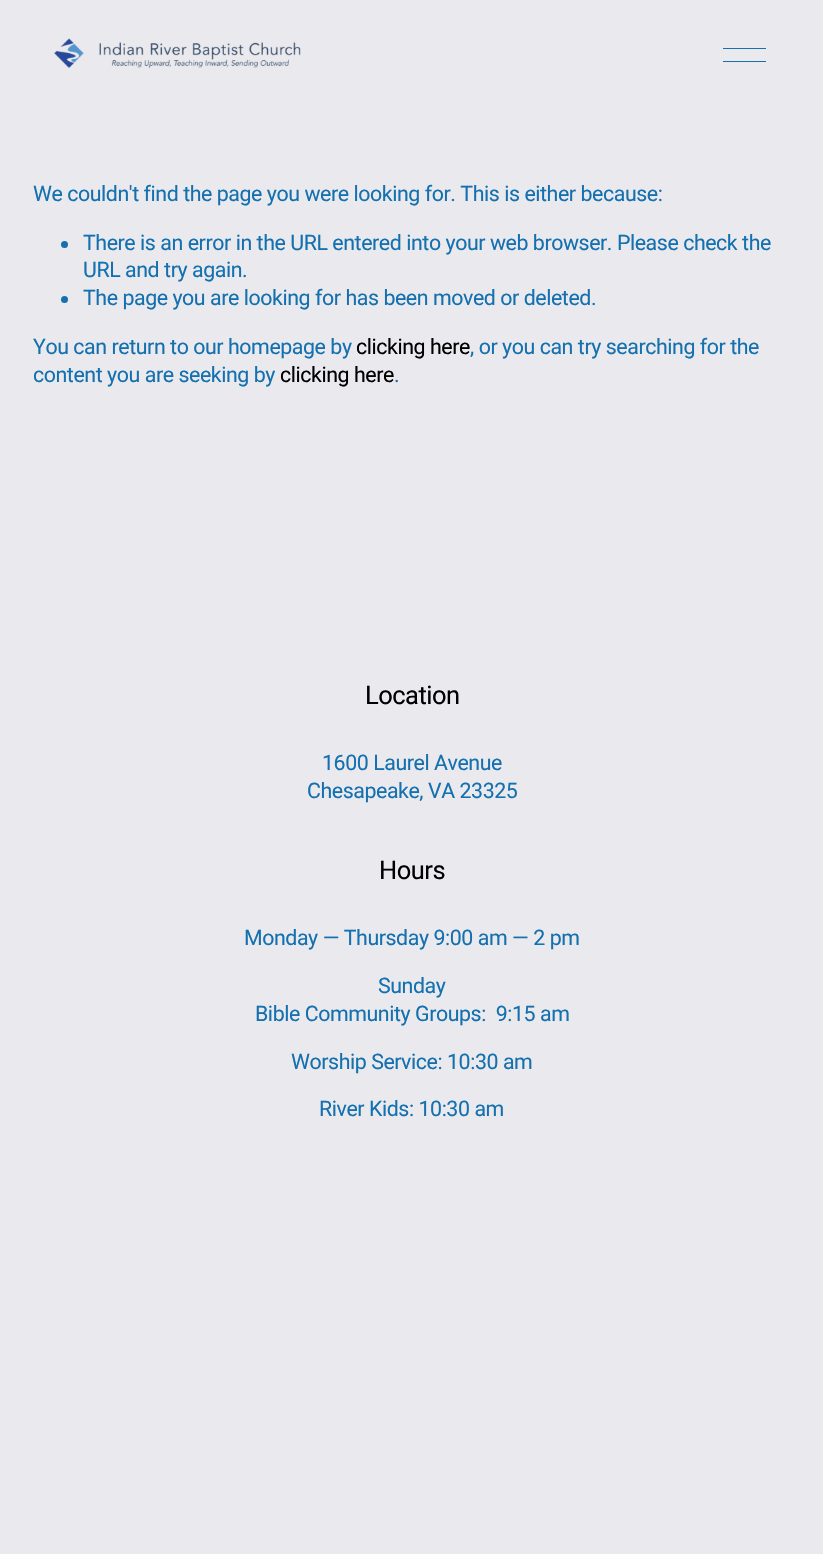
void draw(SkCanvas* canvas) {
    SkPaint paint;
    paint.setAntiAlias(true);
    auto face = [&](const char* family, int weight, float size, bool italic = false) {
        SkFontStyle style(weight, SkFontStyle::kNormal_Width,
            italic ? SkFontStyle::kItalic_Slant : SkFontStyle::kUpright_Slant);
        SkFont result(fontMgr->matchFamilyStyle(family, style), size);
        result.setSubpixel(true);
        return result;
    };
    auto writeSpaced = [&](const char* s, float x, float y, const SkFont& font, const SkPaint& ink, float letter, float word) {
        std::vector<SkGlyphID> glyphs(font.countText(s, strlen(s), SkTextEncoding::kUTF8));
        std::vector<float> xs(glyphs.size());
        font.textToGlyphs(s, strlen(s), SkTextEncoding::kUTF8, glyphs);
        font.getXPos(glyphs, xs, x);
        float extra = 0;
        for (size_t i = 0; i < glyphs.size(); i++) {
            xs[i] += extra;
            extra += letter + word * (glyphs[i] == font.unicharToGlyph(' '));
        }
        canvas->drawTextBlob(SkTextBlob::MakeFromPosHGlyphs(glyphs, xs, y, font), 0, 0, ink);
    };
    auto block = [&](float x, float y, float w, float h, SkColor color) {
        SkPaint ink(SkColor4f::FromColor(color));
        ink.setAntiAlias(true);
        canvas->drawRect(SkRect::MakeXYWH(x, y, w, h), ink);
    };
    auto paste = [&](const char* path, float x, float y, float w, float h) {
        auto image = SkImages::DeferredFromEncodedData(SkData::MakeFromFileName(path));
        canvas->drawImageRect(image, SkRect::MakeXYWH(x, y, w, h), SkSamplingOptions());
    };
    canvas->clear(SkColorSetRGB(234, 234, 238));
    paste("pic1.png", 54, 38, 247, 30);
    block(723, 48, 43, 1, SkColorSetRGB(20, 112, 175));
    block(723, 61, 43, 1, SkColorSetRGB(20, 112, 175));
    auto kFont1 = face("Roboto", 400, 21.35f);
    paint.setColor(SkColorSetRGB(20, 112, 175));
    writeSpaced("We couldn't find the page you were looking for. This is either because:", 33, 201, kFont1, paint, -0.43f, 0);
    canvas->drawCircle(64.5f, 244.5f, 3.5f, paint);
    writeSpaced("There is an error in the URL entered into your web browser. Please check the", 83, 250, kFont1, paint, -0.43f, 0);
    writeSpaced("URL and try again.", 83, 277, kFont1, paint, -0.43f, 0);
    canvas->drawCircle(64.5f, 299.5f, 3.5f, paint);
    writeSpaced("The page you are looking for has been moved or deleted.", 83, 305, kFont1, paint, -0.43f, 0);
    writeSpaced("You can return to our homepage by", 33, 354, kFont1, paint, -0.43f, 0);
    paint.setColor(SK_ColorBLACK);
    writeSpaced("clicking here", 356, 354, kFont1, paint, -0.43f, 0);
    paint.setColor(SkColorSetRGB(20, 112, 175));
    writeSpaced(", or you can try searching for the", 470, 354, kFont1, paint, -0.43f, 0);
    writeSpaced("content you are seeking by", 33, 382, kFont1, paint, -0.43f, 0);
    paint.setColor(SK_ColorBLACK);
    writeSpaced("clicking here", 280, 382, kFont1, paint, -0.43f, 0);
    paint.setColor(SkColorSetRGB(20, 112, 175));
    writeSpaced(".", 394, 382, kFont1, paint, -0.43f, 0);
    auto kFont2 = face("Roboto", 400, 25.5f);
    paint.setColor(SK_ColorBLACK);
    writeSpaced("Location", 365, 704, kFont2, paint, -0.5f, 0);
    paint.setColor(SkColorSetRGB(20, 112, 175));
    writeSpaced("1600 Laurel Avenue", 322, 770, kFont1, paint, -0.43f, 0);
    writeSpaced("Chesapeake, VA 23325", 307, 798, kFont1, paint, -0.43f, 0);
    paint.setColor(SK_ColorBLACK);
    writeSpaced("Hours", 379, 879, kFont2, paint, -0.5f, 0);
    paint.setColor(SkColorSetRGB(20, 112, 175));
    writeSpaced("Monday — Thursday 9:00 am — 2 pm", 244, 945, kFont1, paint, -0.43f, 0);
    writeSpaced("Sunday", 378, 993, kFont1, paint, -0.43f, 0);
    writeSpaced("Bible Community Groups:  9:15 am", 255, 1021, kFont1, paint, -0.43f, 0);
    writeSpaced("Worship Service: 10:30 am", 291, 1069, kFont1, paint, -0.43f, 0);
    writeSpaced("River Kids: 10:30 am", 319, 1116, kFont1, paint, -0.43f, 0);
}
